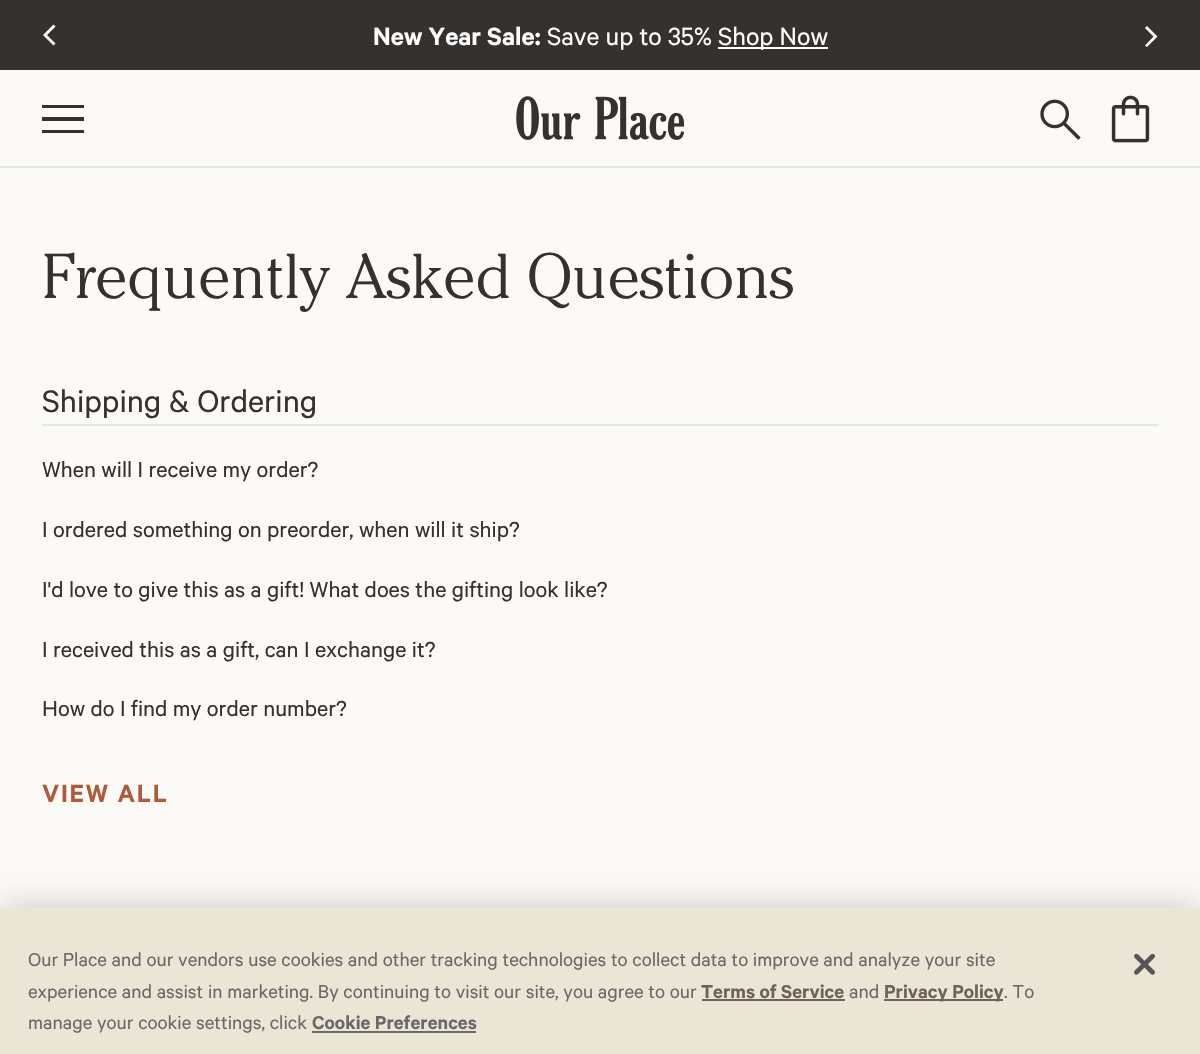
void draw(SkCanvas* canvas) {
    SkPaint paint;
    paint.setAntiAlias(true);
    auto face = [&](const char* family, int weight, float size, bool italic = false) {
        SkFontStyle style(weight, SkFontStyle::kNormal_Width,
            italic ? SkFontStyle::kItalic_Slant : SkFontStyle::kUpright_Slant);
        SkFont result(fontMgr->matchFamilyStyle(family, style), size);
        result.setSubpixel(true);
        return result;
    };
    auto write = [&](const char* s, float x, float y, const SkFont& font, SkColor color) {
        SkPaint ink(SkColor4f::FromColor(color));
        ink.setAntiAlias(true);
        canvas->drawString(s, x, y, font, ink);
    };
    auto writeSpaced = [&](const char* s, float x, float y, const SkFont& font, const SkPaint& ink, float letter, float word) {
        std::vector<SkGlyphID> glyphs(font.countText(s, strlen(s), SkTextEncoding::kUTF8));
        std::vector<float> xs(glyphs.size());
        font.textToGlyphs(s, strlen(s), SkTextEncoding::kUTF8, glyphs);
        font.getXPos(glyphs, xs, x);
        float extra = 0;
        for (size_t i = 0; i < glyphs.size(); i++) {
            xs[i] += extra;
            extra += letter + word * (glyphs[i] == font.unicharToGlyph(' '));
        }
        canvas->drawTextBlob(SkTextBlob::MakeFromPosHGlyphs(glyphs, xs, y, font), 0, 0, ink);
    };
    auto block = [&](float x, float y, float w, float h, SkColor color) {
        SkPaint ink(SkColor4f::FromColor(color));
        ink.setAntiAlias(true);
        canvas->drawRect(SkRect::MakeXYWH(x, y, w, h), ink);
    };
    auto paste = [&](const char* path, float x, float y, float w, float h) {
        auto image = SkImages::DeferredFromEncodedData(SkData::MakeFromFileName(path));
        canvas->drawImageRect(image, SkRect::MakeXYWH(x, y, w, h), SkSamplingOptions());
    };
    canvas->clear(SkColorSetRGB(252, 250, 246));
    block(0, 0, 1200, 70, SkColorSetRGB(53, 49, 46));
    paint.setColor(SK_ColorWHITE);
    canvas->drawPath(SkPathBuilder().moveTo(53.5f, 24.5f).lineTo(55.5f, 26.5f).lineTo(47, 35).lineTo(55.5f, 43.5f).lineTo(53.5f, 45.5f).lineTo(43, 35).close().detach(), paint);
    auto kFont1 = face("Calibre", 600, 28);
    write("New Year Sale:", 373, 45, kFont1, SK_ColorWHITE);
    auto kFont2 = face("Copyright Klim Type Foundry", 400, 28);
    write("Save up to 35%", 547, 45, kFont2, SK_ColorWHITE);
    block(718, 47, 110, 2, SK_ColorWHITE);
    write("Shop Now", 718, 45, kFont2, SK_ColorWHITE);
    canvas->drawPath(SkPathBuilder().moveTo(1147, 47).lineTo(1145, 45.5f).lineTo(1153.5f, 36.5f).lineTo(1145, 28).lineTo(1147, 26).lineTo(1157.5f, 36.5f).close().detach(), paint);
    block(0, 166, 1200, 2, SkColorSetRGB(230, 230, 230));
    paint.setColor(SkColorSetRGB(53, 49, 46));
    canvas->drawPath(SkPathBuilder().moveTo(42, 133).lineTo(42, 130).lineTo(84, 130).lineTo(84, 133).close().moveTo(42, 121).lineTo(42, 117).lineTo(84, 117).lineTo(84, 121).close().moveTo(42, 108).lineTo(42, 105).lineTo(84, 105).lineTo(84, 108).close().detach(), paint);
    paste("pic1.png", 516, 96, 168, 44);
    paste("pic2.png", 1040, 99, 41, 41);
    paste("pic3.png", 1111, 95, 39, 48);
    auto kFont3 = face("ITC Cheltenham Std", 300, 63);
    write("Frequently Asked Questions", 42, 298, kFont3, SkColorSetRGB(53, 49, 46));
    block(42, 424, 1117, 2, SkColorSetRGB(230, 230, 230));
    auto kFont4 = face("Copyright Klim Type Foundry", 400, 35);
    write("Shipping & Ordering", 42, 412, kFont4, SkColorSetRGB(53, 49, 46));
    auto kFont5 = face("Copyright Klim Type Foundry", 400, 24.5f);
    write("When will I receive my order?", 42, 477, kFont5, SkColorSetRGB(53, 49, 46));
    write("I ordered something on preorder, when will it ship?", 42, 537, kFont5, SkColorSetRGB(53, 49, 46));
    write("I'd love to give this as a gift! What does the gifting look like?", 42, 597, kFont5, SkColorSetRGB(53, 49, 46));
    write("I received this as a gift, can I exchange it?", 42, 657, kFont5, SkColorSetRGB(53, 49, 46));
    write("How do I find my order number?", 42, 716, kFont5, SkColorSetRGB(53, 49, 46));
    paint.setColor(SkColorSetRGB(175, 90, 60));
    writeSpaced("VIEW ALL", 42, 802, kFont1, paint, 1.75f, 0);
    paint.setColor(SkColorSetARGB(51, 0, 0, 0));
    paint.setMaskFilter(SkMaskFilter::MakeBlur(kNormal_SkBlurStyle, 16));
    canvas->drawRect(SkRect::MakeXYWH(0, 908, 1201, 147), paint);
    paint.setMaskFilter(nullptr);
    block(0, 908, 1200, 146, SkColorSetRGB(235, 229, 213));
    auto kFont6 = face("Copyright Klim Type Foundry", 400, 21);
    write("Our Place and our vendors use cookies and other tracking technologies to collect data to improve and analyze your site", 28, 966, kFont6, SkColorSetRGB(105, 105, 105));
    write("experience and assist in marketing. By continuing to visit our site, you agree to our", 28, 998, kFont6, SkColorSetRGB(105, 105, 105));
    auto kFont7 = face("Calibre", 600, 21);
    write("Terms of Service", 701, 998, kFont7, SkColorSetRGB(110, 98, 90));
    block(702, 999, 143, 2, SkColorSetRGB(110, 98, 90));
    write("and", 849, 998, kFont6, SkColorSetRGB(105, 105, 105));
    block(884, 999, 119, 2, SkColorSetRGB(110, 98, 90));
    write("Privacy Policy", 884, 998, kFont7, SkColorSetRGB(110, 98, 90));
    write(". To", 1004, 998, kFont6, SkColorSetRGB(105, 105, 105));
    write("manage your cookie settings, click", 28, 1029, kFont6, SkColorSetRGB(105, 105, 105));
    write("Cookie Preferences", 312, 1029, kFont7, SkColorSetRGB(105, 105, 105));
    block(312, 1031, 164, 2, SkColorSetRGB(105, 105, 105));
    paste("pic4.png", 1134, 954, 21, 21);
}
